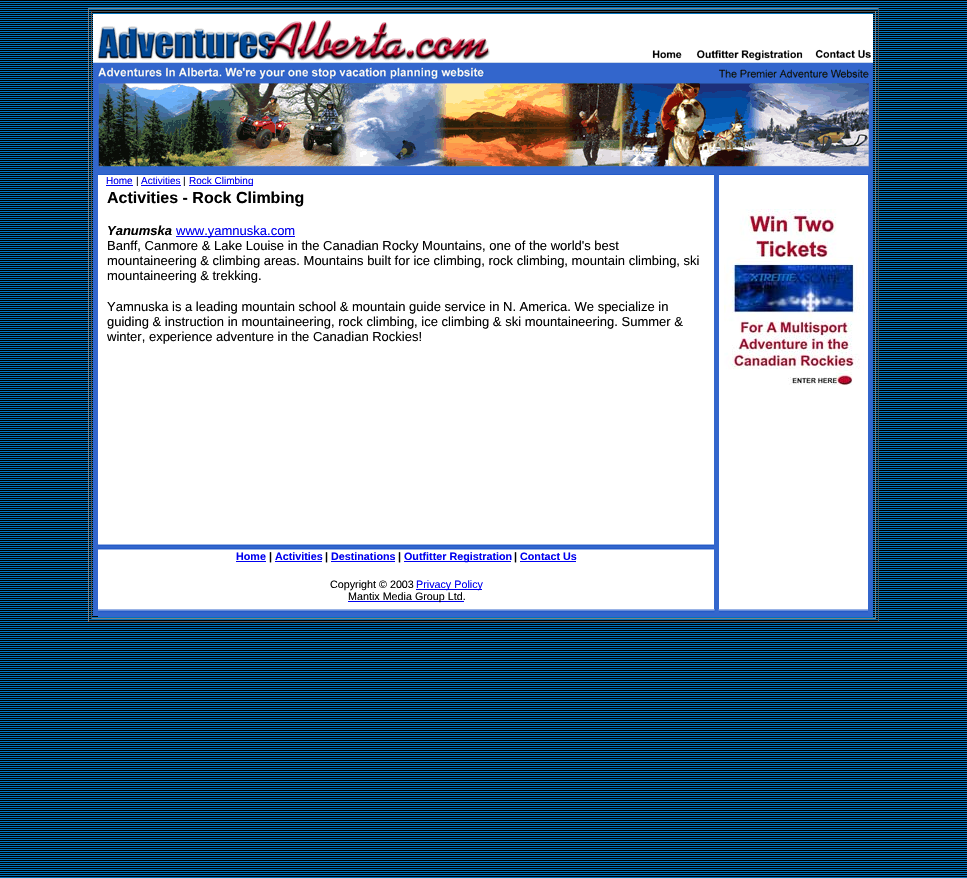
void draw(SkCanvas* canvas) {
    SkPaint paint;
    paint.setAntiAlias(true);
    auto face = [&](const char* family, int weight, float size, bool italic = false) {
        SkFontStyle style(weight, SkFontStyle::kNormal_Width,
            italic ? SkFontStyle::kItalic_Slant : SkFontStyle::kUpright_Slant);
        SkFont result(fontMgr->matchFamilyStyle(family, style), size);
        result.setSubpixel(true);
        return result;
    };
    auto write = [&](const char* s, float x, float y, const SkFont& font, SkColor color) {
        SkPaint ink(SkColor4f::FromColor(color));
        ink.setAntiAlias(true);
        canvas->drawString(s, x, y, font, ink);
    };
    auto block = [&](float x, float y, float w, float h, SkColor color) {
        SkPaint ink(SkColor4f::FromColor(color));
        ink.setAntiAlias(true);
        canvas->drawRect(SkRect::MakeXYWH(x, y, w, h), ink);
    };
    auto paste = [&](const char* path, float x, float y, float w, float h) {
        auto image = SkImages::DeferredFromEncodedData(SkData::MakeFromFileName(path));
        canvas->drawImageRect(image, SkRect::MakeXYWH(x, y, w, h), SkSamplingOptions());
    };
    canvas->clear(SK_ColorWHITE);
    paste("pic1.png", 0, 0, 967, 878);
    block(88, 8, 791, 1, SkColorSetRGB(128, 128, 128));
    block(878, 8, 1, 614, SkColorSetRGB(85, 85, 85));
    block(88, 621, 791, 1, SkColorSetRGB(85, 85, 85));
    block(88, 8, 1, 614, SkColorSetRGB(128, 128, 128));
    block(91, 11, 785, 1, SkColorSetRGB(85, 85, 85));
    block(875, 11, 1, 608, SkColorSetRGB(128, 128, 128));
    block(91, 618, 785, 1, SkColorSetRGB(128, 128, 128));
    block(91, 11, 1, 608, SkColorSetRGB(85, 85, 85));
    block(93, 14, 546, 48, SK_ColorWHITE);
    paste("pic2.png", 97, 20, 393, 41);
    block(639, 14, 234, 29, SK_ColorWHITE);
    block(639, 43, 234, 19, SK_ColorWHITE);
    paste("pic3.png", 652, 50, 30, 9);
    paste("pic4.png", 696, 50, 107, 11);
    paste("pic5.png", 815, 49, 56, 9);
    paste("pic6.png", 93, 62, 780, 113);
    block(93, 175, 5, 441, SkColorSetRGB(51, 102, 204));
    block(98, 175, 616, 369, SK_ColorWHITE);
    auto kFont1 = face("Liberation Sans", 400, 10);
    write("Home", 106, 184, kFont1, SkColorSetRGB(0, 0, 238));
    block(106, 185, 27, 1, SkColorSetRGB(0, 0, 238));
    write("|", 136, 184, kFont1, SK_ColorBLACK);
    write("Activities", 141, 184, kFont1, SkColorSetRGB(0, 0, 238));
    block(141, 185, 40, 1, SkColorSetRGB(0, 0, 238));
    write("|", 183, 184, kFont1, SK_ColorBLACK);
    block(189, 185, 64, 1, SkColorSetRGB(0, 0, 238));
    write("Rock Climbing", 189, 184, kFont1, SkColorSetRGB(0, 0, 238));
    auto kFont2 = face("Liberation Sans", 700, 16);
    write("Activities - Rock Climbing", 107, 203, kFont2, SK_ColorBLACK);
    auto kFont3 = face("Liberation Sans", 700, 13, true);
    write("Yanumska", 107, 235, kFont3, SK_ColorBLACK);
    block(176, 236, 119, 1, SkColorSetRGB(0, 0, 238));
    auto kFont4 = face("Liberation Sans", 400, 13);
    write("www.yamnuska.com", 176, 235, kFont4, SkColorSetRGB(0, 0, 238));
    write("Banff, Canmore & Lake Louise in the Canadian Rocky Mountains, one of the world's best", 107, 250, kFont4, SK_ColorBLACK);
    write("mountaineering & climbing areas. Mountains built for ice climbing, rock climbing, mountain climbing, ski", 107, 265, kFont4, SK_ColorBLACK);
    write("mountaineering & trekking.", 107, 280, kFont4, SK_ColorBLACK);
    write("Yamnuska is a leading mountain school & mountain guide service in N. America. We specialize in", 107, 311, kFont4, SK_ColorBLACK);
    write("guiding & instruction in mountaineering, rock climbing, ice climbing & ski mountaineering. Summer &", 107, 326, kFont4, SK_ColorBLACK);
    write("winter, experience adventure in the Canadian Rockies!", 107, 341, kFont4, SK_ColorBLACK);
    block(714, 175, 5, 434, SkColorSetRGB(51, 102, 204));
    block(719, 175, 149, 434, SK_ColorWHITE);
    paste("pic7.png", 724, 209, 140, 177);
    block(868, 175, 5, 442, SkColorSetRGB(51, 102, 204));
    paste("pic8.png", 98, 544, 616, 6);
    block(98, 550, 616, 59, SK_ColorWHITE);
    auto kFont5 = face("Liberation Sans", 700, 10.75f);
    write("Home", 236, 560, kFont5, SkColorSetRGB(0, 0, 238));
    block(236, 561, 30, 1, SkColorSetRGB(0, 0, 238));
    write("|", 269, 560, kFont5, SK_ColorBLACK);
    write("Activities", 275, 560, kFont5, SkColorSetRGB(0, 0, 238));
    block(275, 561, 47, 1, SkColorSetRGB(0, 0, 238));
    write("|", 325, 560, kFont5, SK_ColorBLACK);
    write("Destinations", 331, 560, kFont5, SkColorSetRGB(0, 0, 238));
    block(331, 561, 64, 1, SkColorSetRGB(0, 0, 238));
    write("|", 398, 560, kFont5, SK_ColorBLACK);
    block(404, 561, 107, 1, SkColorSetRGB(0, 0, 238));
    write("Outfitter Registration", 404, 560, kFont5, SkColorSetRGB(0, 0, 238));
    write("|", 514, 560, kFont5, SK_ColorBLACK);
    write("Contact Us", 520, 560, kFont5, SkColorSetRGB(0, 0, 238));
    block(520, 561, 56, 1, SkColorSetRGB(0, 0, 238));
    auto kFont6 = face("Liberation Sans", 400, 10.75f);
    write("Copyright © 2003", 330, 588, kFont6, SK_ColorBLACK);
    block(416, 589, 66, 1, SkColorSetRGB(0, 0, 238));
    write("Privacy Policy", 416, 588, kFont6, SkColorSetRGB(0, 0, 238));
    block(348, 601, 116, 1, SkColorSetRGB(0, 0, 238));
    write("Mantix Media Group Ltd.", 348, 600, kFont6, SK_ColorBLACK);
    block(98, 613, 770, 4, SkColorSetRGB(51, 102, 204));
    paste("pic9.png", 98, 609, 770, 4);
}
